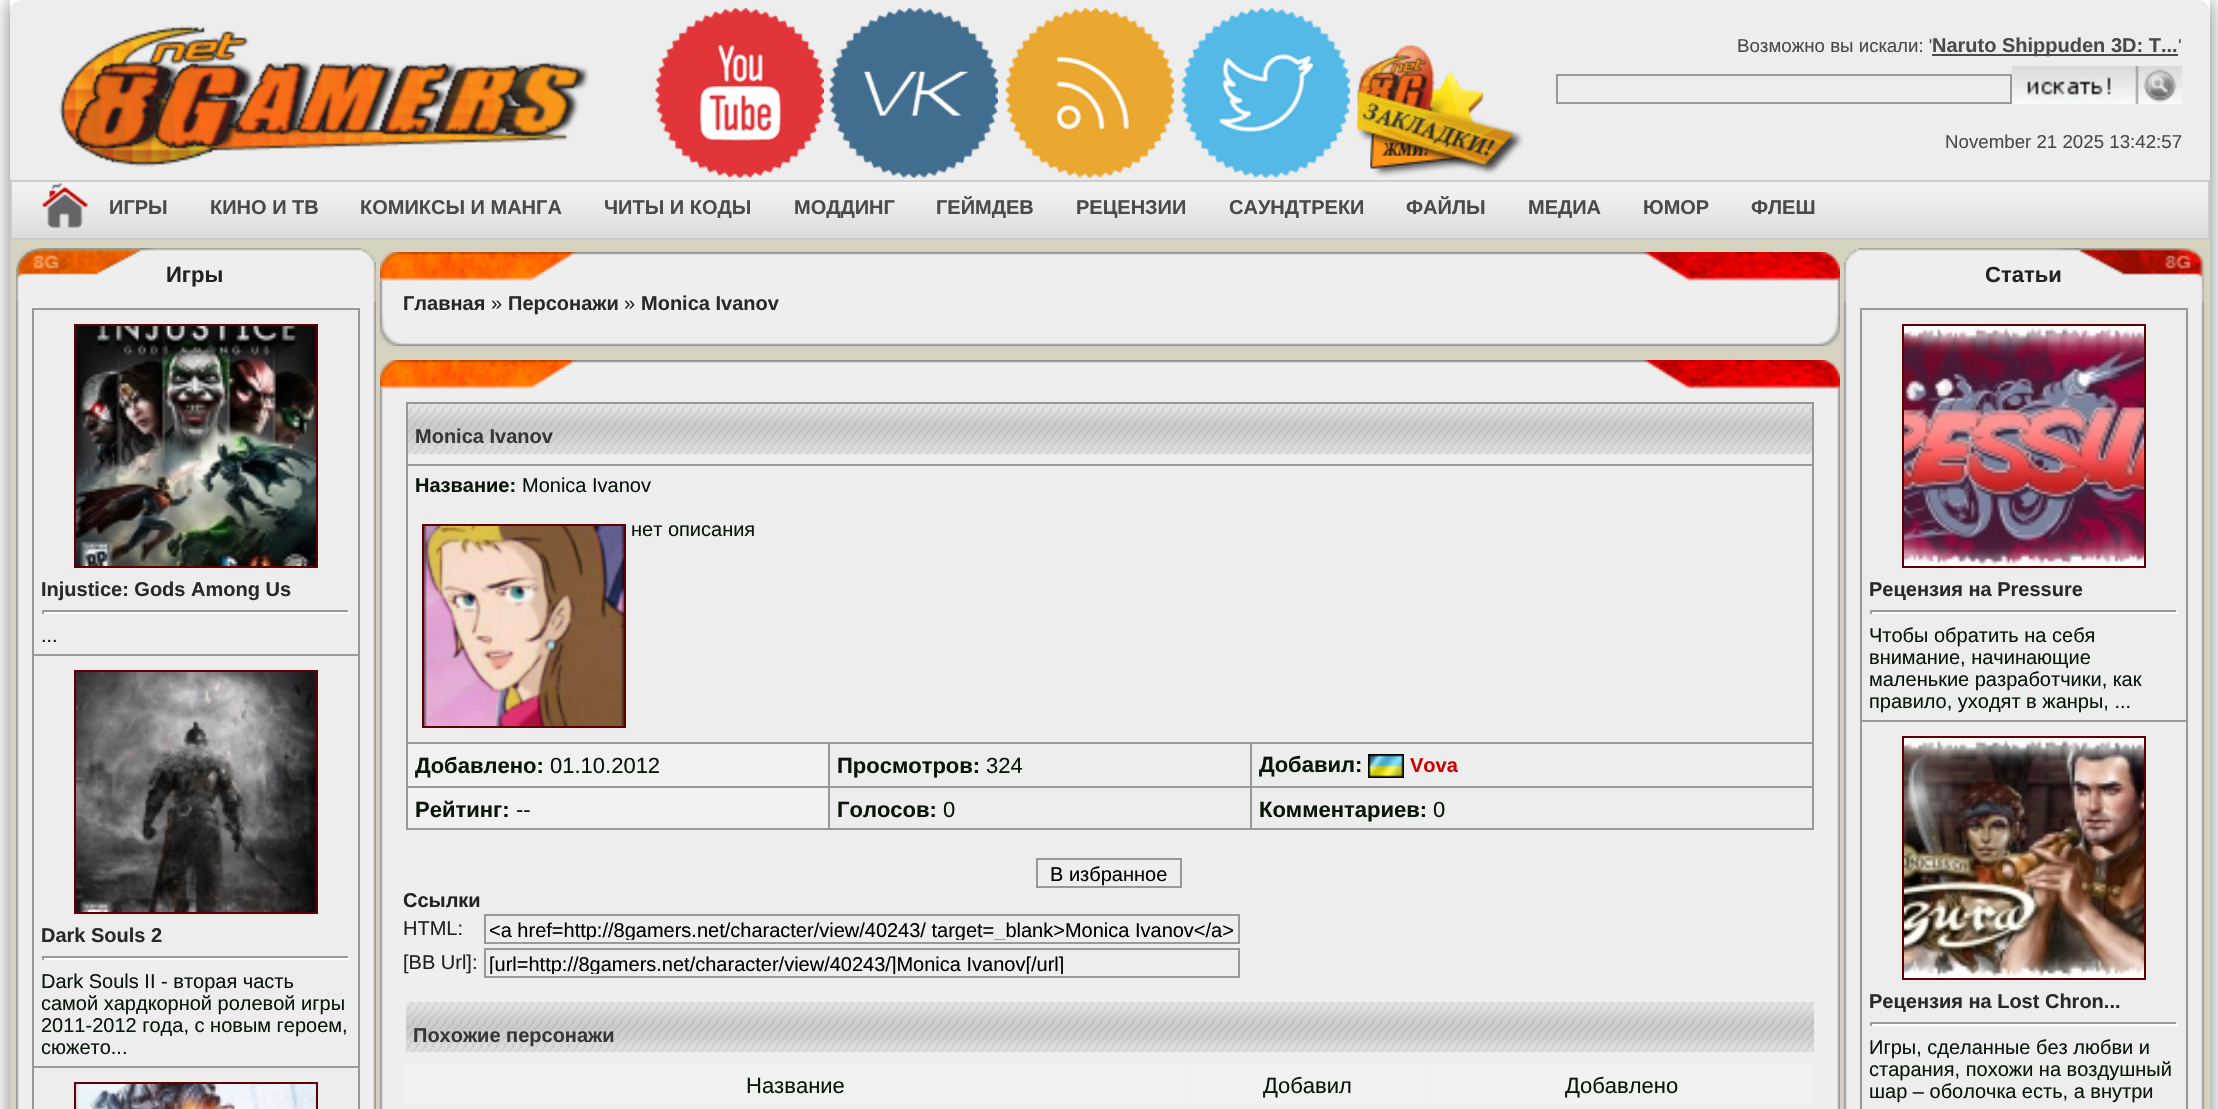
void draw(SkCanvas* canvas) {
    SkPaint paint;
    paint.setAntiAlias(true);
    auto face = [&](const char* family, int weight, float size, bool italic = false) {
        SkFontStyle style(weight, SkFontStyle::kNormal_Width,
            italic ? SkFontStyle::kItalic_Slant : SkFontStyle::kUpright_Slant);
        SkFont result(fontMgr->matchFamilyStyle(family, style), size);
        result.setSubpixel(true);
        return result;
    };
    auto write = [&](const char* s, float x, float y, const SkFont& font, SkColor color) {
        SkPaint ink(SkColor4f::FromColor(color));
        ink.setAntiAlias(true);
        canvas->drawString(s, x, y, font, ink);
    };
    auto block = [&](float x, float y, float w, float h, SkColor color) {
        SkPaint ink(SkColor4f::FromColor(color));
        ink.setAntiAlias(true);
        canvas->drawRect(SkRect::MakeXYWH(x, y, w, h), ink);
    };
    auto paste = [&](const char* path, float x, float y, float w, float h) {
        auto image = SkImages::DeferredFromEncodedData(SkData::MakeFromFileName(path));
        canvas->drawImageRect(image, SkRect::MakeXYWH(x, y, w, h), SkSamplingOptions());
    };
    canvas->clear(SK_ColorWHITE);
    canvas->save();
    canvas->clipPath(SkPathBuilder(SkPathFillType::kEvenOdd).moveTo(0, 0).lineTo(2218, 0).lineTo(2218, 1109).lineTo(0, 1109).close().moveTo(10, 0).lineTo(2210, 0).lineTo(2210, 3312).lineTo(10, 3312).close().detach(), true);
    paint.setColor(SkColorSetARGB(128, 0, 0, 0));
    paint.setMaskFilter(SkMaskFilter::MakeBlur(kNormal_SkBlurStyle, 10));
    canvas->drawRect(SkRect::MakeXYWH(10, 0, 2200, 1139), paint);
    paint.setMaskFilter(nullptr);
    canvas->restore();
    paint.setColor(SkColorSetRGB(237, 237, 237));
    canvas->drawPath(SkPathBuilder().moveTo(22, 0).lineTo(2198, 0).cubicTo(2204.5f, 0, 2210, 5.5f, 2210, 12).lineTo(2210, 180).lineTo(10, 180).lineTo(10, 12).cubicTo(10, 5.5f, 15.5f, 0, 22, 0).close().detach(), paint);
    paste("pic1.png", 59, 25, 530, 142);
    paste("pic2.png", 655, 8, 169, 170);
    paste("pic3.png", 829, 8, 169, 170);
    paste("pic4.png", 1005, 8, 169, 170);
    paste("pic5.png", 1181, 8, 169, 170);
    paste("pic6.png", 1356, 44, 168, 133);
    auto kFont1 = face("Liberation Sans", 400, 18.7f);
    write("Возможно вы искали: '", 1737, 52, kFont1, SkColorSetRGB(74, 74, 74));
    block(1932, 54, 246, 2, SkColorSetRGB(74, 74, 74));
    auto kFont2 = face("Liberation Sans", 700, 20);
    write("Naruto Shippuden 3D: T...", 1932, 52, kFont2, SkColorSetRGB(74, 74, 74));
    write("'", 2178, 52, kFont1, SkColorSetRGB(74, 74, 74));
    paint.setStyle(SkPaint::kStroke_Style);
    paint.setStrokeWidth(2);
    paint.setColor(SkColorSetRGB(153, 153, 153));
    canvas->drawRect(SkRect::MakeXYWH(1557, 75, 454, 28), paint);
    paste("pic7.png", 2012, 66, 170, 38);
    write("November 21 2025 13:42:57", 1945, 148, kFont1, SkColorSetRGB(74, 74, 74));
    paste("pic8.png", 12, 182, 2196, 56);
    paint.setColor(SkColorSetRGB(204, 204, 204));
    canvas->drawRect(SkRect::MakeXYWH(11, 181, 2198, 58), paint);
    paste("pic9.png", 42, 182, 46, 46);
    write("ИГРЫ", 109, 214, kFont2, SkColorSetRGB(74, 74, 74));
    write("КИНО И ТВ", 210, 214, kFont2, SkColorSetRGB(74, 74, 74));
    write("КОМИКСЫ И МАНГА", 360, 214, kFont2, SkColorSetRGB(74, 74, 74));
    write("ЧИТЫ И КОДЫ", 604, 214, kFont2, SkColorSetRGB(74, 74, 74));
    write("МОДДИНГ", 794, 214, kFont2, SkColorSetRGB(74, 74, 74));
    write("ГЕЙМДЕВ", 936, 214, kFont2, SkColorSetRGB(74, 74, 74));
    write("РЕЦЕНЗИИ", 1076, 214, kFont2, SkColorSetRGB(74, 74, 74));
    write("САУНДТРЕКИ", 1229, 214, kFont2, SkColorSetRGB(74, 74, 74));
    write("ФАЙЛЫ", 1406, 214, kFont2, SkColorSetRGB(74, 74, 74));
    write("МЕДИА", 1528, 214, kFont2, SkColorSetRGB(74, 74, 74));
    write("ЮМОР", 1643, 214, kFont2, SkColorSetRGB(74, 74, 74));
    write("ФЛЕШ", 1751, 214, kFont2, SkColorSetRGB(74, 74, 74));
    block(10, 240, 2200, 869, SkColorSetRGB(213, 210, 191));
    paste("pic10.png", 16, 248, 360, 54);
    auto kFont3 = face("Liberation Sans", 700, 22);
    write("Игры", 166, 282, kFont3, SkColorSetRGB(34, 34, 34));
    paste("pic11.png", 16, 302, 360, 807);
    block(32, 308, 328, 801, SkColorSetRGB(153, 153, 153));
    block(34, 310, 324, 344, SkColorSetRGB(237, 237, 237));
    paint.setColor(SkColorSetRGB(97, 0, 1));
    canvas->drawRect(SkRect::MakeXYWH(75, 325, 242, 242), paint);
    paste("pic12.png", 76, 326, 240, 240);
    write("Injustice: Gods Among Us", 41, 596, kFont2, SkColorSetRGB(41, 41, 41));
    block(42, 610, 308, 2, SkColorSetRGB(153, 153, 153));
    block(348, 610, 2, 4, SkColorSetRGB(238, 238, 238));
    block(42, 612, 308, 2, SK_ColorWHITE);
    block(42, 610, 2, 4, SkColorSetRGB(159, 159, 159));
    auto kFont4 = face("Liberation Sans", 400, 20);
    write("...", 41, 642, kFont4, SkColorSetRGB(9, 22, 9));
    block(34, 656, 324, 410, SkColorSetRGB(237, 237, 237));
    canvas->drawRect(SkRect::MakeXYWH(75, 671, 242, 242), paint);
    paste("pic13.png", 76, 672, 240, 240);
    write("Dark Souls 2", 41, 942, kFont2, SkColorSetRGB(41, 41, 41));
    block(42, 956, 308, 2, SkColorSetRGB(153, 153, 153));
    block(348, 956, 2, 4, SkColorSetRGB(238, 238, 238));
    block(42, 958, 308, 2, SK_ColorWHITE);
    block(42, 956, 2, 4, SkColorSetRGB(159, 159, 159));
    write("Dark Souls II - вторая часть", 41, 988, kFont4, SkColorSetRGB(9, 22, 9));
    write("самой хардкорной ролевой игры", 41, 1010, kFont4, SkColorSetRGB(9, 22, 9));
    write("2011-2012 года, с новым героем,", 41, 1032, kFont4, SkColorSetRGB(9, 22, 9));
    write("сюжето...", 41, 1054, kFont4, SkColorSetRGB(9, 22, 9));
    block(34, 1068, 324, 41, SkColorSetRGB(237, 237, 237));
    canvas->drawRect(SkRect::MakeXYWH(75, 1083, 242, 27), paint);
    paste("pic14.png", 76, 1084, 240, 25);
    paste("pic15.png", 380, 252, 196, 38);
    paste("pic16.png", 576, 252, 1068, 38);
    paste("pic17.png", 1644, 252, 196, 38);
    paste("pic18.png", 380, 290, 22, 26);
    block(402, 290, 1416, 26, SkColorSetRGB(238, 238, 238));
    write("Главная", 403, 310, kFont2, SkColorSetRGB(41, 41, 41));
    write("»", 491, 310, kFont4, SkColorSetRGB(34, 34, 34));
    write("Персонажи", 508, 310, kFont2, SkColorSetRGB(41, 41, 41));
    write("»", 624, 310, kFont4, SkColorSetRGB(34, 34, 34));
    write("Monica Ivanov", 641, 310, kFont2, SkColorSetRGB(41, 41, 41));
    paste("pic19.png", 1818, 290, 22, 26);
    paste("pic20.png", 380, 316, 24, 30);
    paste("pic21.png", 404, 316, 1412, 30);
    paste("pic22.png", 1816, 316, 24, 30);
    paste("pic15.png", 380, 360, 196, 38);
    paste("pic16.png", 576, 360, 1068, 38);
    paste("pic17.png", 1644, 360, 196, 38);
    paste("pic23.png", 380, 398, 22, 711);
    block(402, 398, 1416, 711, SkColorSetRGB(238, 238, 238));
    block(406, 402, 1408, 428, SkColorSetRGB(153, 153, 153));
    block(408, 454, 1404, 10, SkColorSetRGB(237, 237, 237));
    paste("pic24.png", 408, 404, 1404, 50);
    write("Monica Ivanov", 415, 443, kFont2, SkColorSetRGB(54, 54, 54));
    block(408, 466, 1404, 276, SkColorSetRGB(237, 237, 237));
    write("Название:", 415, 492, kFont2, SkColorSetRGB(9, 22, 9));
    write("Monica Ivanov", 522, 492, kFont4, SkColorSetRGB(9, 22, 9));
    canvas->drawRect(SkRect::MakeXYWH(423, 525, 202, 202), paint);
    paste("pic25.png", 424, 526, 200, 200);
    write("нет описания", 631, 536, kFont4, SkColorSetRGB(9, 22, 9));
    block(408, 744, 420, 42, SkColorSetRGB(241, 241, 241));
    write("Добавлено:", 415, 773, kFont3, SkColorSetRGB(9, 22, 9));
    auto kFont5 = face("Liberation Sans", 400, 22);
    write("01.10.2012", 550, 773, kFont5, SkColorSetRGB(9, 22, 9));
    block(830, 744, 420, 42, SkColorSetRGB(237, 237, 237));
    write("Просмотров:", 837, 773, kFont3, SkColorSetRGB(9, 22, 9));
    write("324", 986, 773, kFont5, SkColorSetRGB(9, 22, 9));
    block(1252, 744, 560, 42, SkColorSetRGB(237, 237, 237));
    write("Добавил:", 1259, 772, kFont3, SkColorSetRGB(9, 22, 9));
    paste("pic26.png", 1368, 754, 36, 24);
    write("Vova", 1410, 772, kFont2, SkColorSetRGB(204, 0, 0));
    block(408, 788, 420, 40, SkColorSetRGB(241, 241, 241));
    write("Рейтинг:", 415, 817, kFont3, SkColorSetRGB(9, 22, 9));
    write("--", 516, 817, kFont5, SkColorSetRGB(9, 22, 9));
    block(830, 788, 420, 40, SkColorSetRGB(237, 237, 237));
    write("Голосов:", 837, 817, kFont3, SkColorSetRGB(9, 22, 9));
    write("0", 943, 817, kFont5, SkColorSetRGB(9, 22, 9));
    block(1252, 788, 560, 40, SkColorSetRGB(237, 237, 237));
    write("Комментариев:", 1259, 817, kFont3, SkColorSetRGB(9, 22, 9));
    write("0", 1433, 817, kFont5, SkColorSetRGB(9, 22, 9));
    paint.setColor(SkColorSetRGB(153, 153, 153));
    canvas->drawRect(SkRect::MakeXYWH(1037, 859, 144, 28), paint);
    write("В избранное", 1050, 881, kFont4, SK_ColorBLACK);
    write("Ссылки", 403, 907, kFont2, SkColorSetRGB(34, 34, 34));
    write("HTML:", 403, 935, kFont4, SkColorSetRGB(34, 34, 34));
    canvas->drawRect(SkRect::MakeXYWH(485, 915, 754, 28), paint);
    canvas->save();
    canvas->clipRect(SkRect::MakeXYWH(490, 918, 744, 22));
    write("<a href=http://8gamers.net/character/view/40243/ target=_blank>Monica Ivanov</a>", 489, 937, kFont4, SK_ColorBLACK);
    canvas->restore();
    write("[BB Url]:", 403, 969, kFont4, SkColorSetRGB(34, 34, 34));
    canvas->drawRect(SkRect::MakeXYWH(485, 949, 754, 28), paint);
    canvas->save();
    canvas->clipRect(SkRect::MakeXYWH(490, 952, 744, 22));
    write("[url=http://8gamers.net/character/view/40243/]Monica Ivanov[/url]", 489, 971, kFont4, SK_ColorBLACK);
    canvas->restore();
    paste("pic27.png", 406, 1002, 1408, 50);
    write("Похожие персонажи", 413, 1042, kFont2, SkColorSetRGB(54, 54, 54));
    block(406, 1064, 780, 40, SkColorSetRGB(241, 241, 241));
    write("Название", 746, 1093, kFont5, SkColorSetRGB(9, 22, 9));
    block(1188, 1064, 240, 40, SkColorSetRGB(241, 241, 241));
    write("Добавил", 1263, 1093, kFont5, SkColorSetRGB(9, 22, 9));
    block(1430, 1064, 384, 40, SkColorSetRGB(241, 241, 241));
    write("Добавлено", 1565, 1093, kFont5, SkColorSetRGB(9, 22, 9));
    paste("pic28.png", 1818, 398, 22, 711);
    paste("pic29.png", 1844, 248, 360, 54);
    write("Статьи", 1985, 282, kFont3, SkColorSetRGB(34, 34, 34));
    paste("pic11.png", 1844, 302, 360, 807);
    block(1860, 308, 328, 801, SkColorSetRGB(153, 153, 153));
    block(1862, 310, 324, 410, SkColorSetRGB(237, 237, 237));
    paint.setColor(SkColorSetRGB(97, 0, 1));
    canvas->drawRect(SkRect::MakeXYWH(1903, 325, 242, 242), paint);
    paste("pic30.png", 1904, 326, 240, 240);
    write("Рецензия на Pressure", 1869, 596, kFont2, SkColorSetRGB(41, 41, 41));
    block(1870, 610, 308, 2, SkColorSetRGB(153, 153, 153));
    block(2176, 610, 2, 4, SkColorSetRGB(238, 238, 238));
    block(1870, 612, 308, 2, SK_ColorWHITE);
    block(1870, 610, 2, 4, SkColorSetRGB(159, 159, 159));
    write("Чтобы обратить на себя", 1869, 642, kFont4, SkColorSetRGB(9, 22, 9));
    write("внимание, начинающие", 1869, 664, kFont4, SkColorSetRGB(9, 22, 9));
    write("маленькие разработчики, как", 1869, 686, kFont4, SkColorSetRGB(9, 22, 9));
    write("правило, уходят в жанры, ...", 1869, 708, kFont4, SkColorSetRGB(9, 22, 9));
    block(1862, 722, 324, 387, SkColorSetRGB(237, 237, 237));
    canvas->drawRect(SkRect::MakeXYWH(1903, 737, 242, 242), paint);
    paste("pic31.png", 1904, 738, 240, 240);
    write("Рецензия на Lost Chron...", 1869, 1008, kFont2, SkColorSetRGB(41, 41, 41));
    block(1870, 1022, 308, 2, SkColorSetRGB(153, 153, 153));
    block(2176, 1022, 2, 4, SkColorSetRGB(238, 238, 238));
    block(1870, 1024, 308, 2, SK_ColorWHITE);
    block(1870, 1022, 2, 4, SkColorSetRGB(159, 159, 159));
    write("Игры, сделанные без любви и", 1869, 1054, kFont4, SkColorSetRGB(9, 22, 9));
    write("старания, похожи на воздушный", 1869, 1076, kFont4, SkColorSetRGB(9, 22, 9));
    write("шар – оболочка есть, а внутри", 1869, 1098, kFont4, SkColorSetRGB(9, 22, 9));
}
